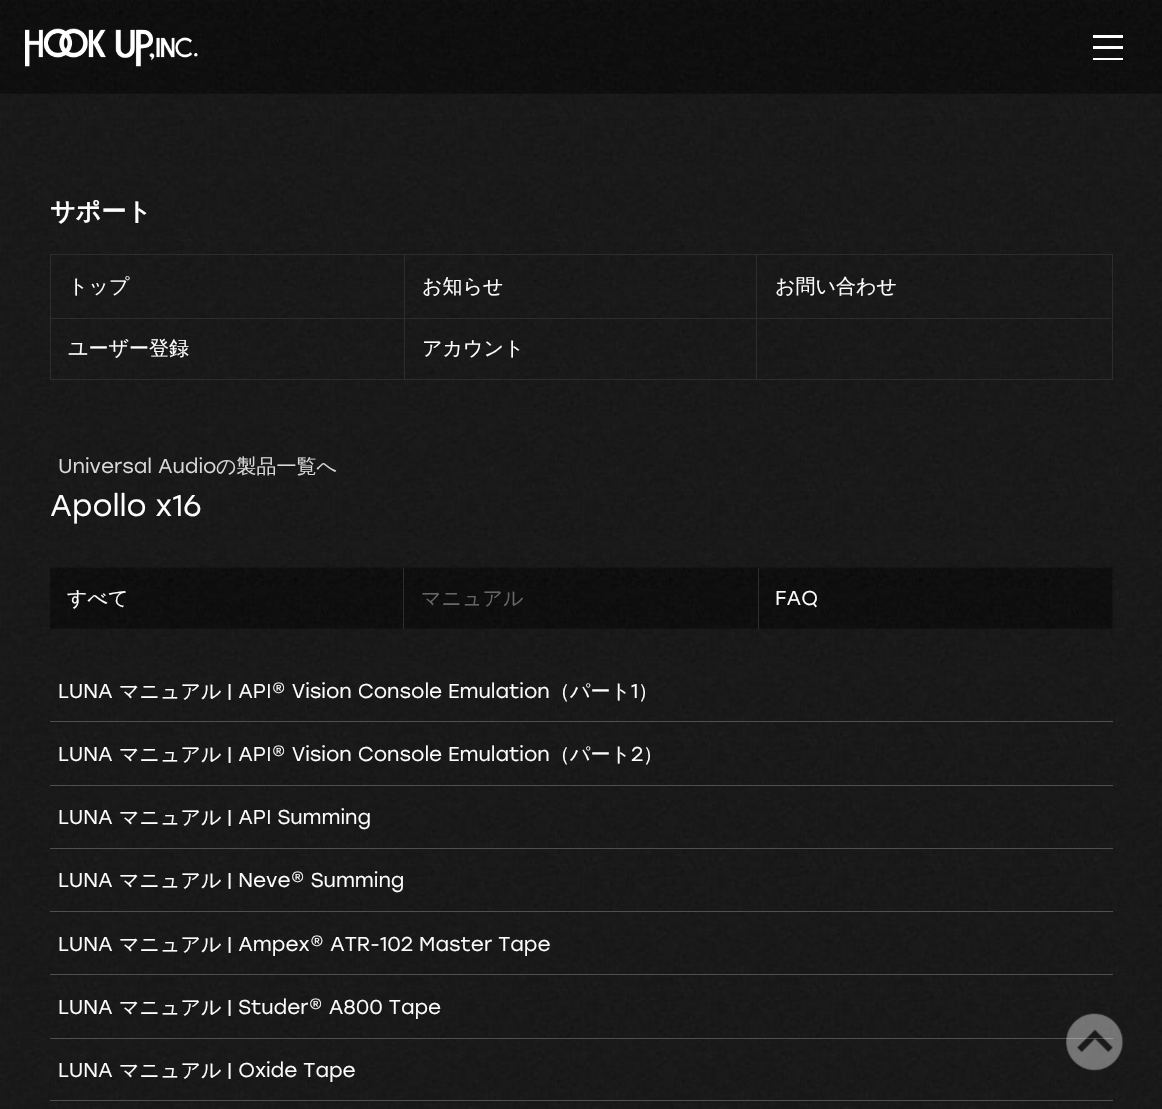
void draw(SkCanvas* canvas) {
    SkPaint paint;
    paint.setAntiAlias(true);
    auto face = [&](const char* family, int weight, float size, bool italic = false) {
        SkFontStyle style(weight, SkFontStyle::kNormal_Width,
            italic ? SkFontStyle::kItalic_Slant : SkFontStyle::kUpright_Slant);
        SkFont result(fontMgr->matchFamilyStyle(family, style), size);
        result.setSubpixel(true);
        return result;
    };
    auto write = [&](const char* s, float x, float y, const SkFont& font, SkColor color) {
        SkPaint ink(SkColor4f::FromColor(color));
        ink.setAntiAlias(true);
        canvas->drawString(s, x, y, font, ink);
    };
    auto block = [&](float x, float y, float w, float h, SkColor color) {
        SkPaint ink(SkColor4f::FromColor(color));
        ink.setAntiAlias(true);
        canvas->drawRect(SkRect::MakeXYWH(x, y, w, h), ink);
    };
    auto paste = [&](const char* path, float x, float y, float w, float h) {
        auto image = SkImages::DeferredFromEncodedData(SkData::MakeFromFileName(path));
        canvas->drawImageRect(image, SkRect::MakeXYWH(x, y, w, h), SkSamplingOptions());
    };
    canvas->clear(SK_ColorWHITE);
    paste("pic1.png", 0, 93, 1162, 1016);
    paste("pic2.png", 0, 0, 1162, 94);
    paste("pic3.png", 25, 28, 173, 39);
    block(1093, 35, 30, 3, SkColorSetRGB(254, 254, 254));
    block(1093, 46, 30, 3, SkColorSetRGB(254, 254, 254));
    block(1093, 58, 30, 2, SkColorSetRGB(254, 254, 254));
    auto kFont1 = face("WenQuanYi Zen Hei", 700, 25);
    write("サポート", 50, 220, kFont1, SkColorSetRGB(254, 254, 254));
    paint.setStyle(SkPaint::kStroke_Style);
    paint.setStrokeWidth(1);
    paint.setColor(SkColorSetRGB(45, 45, 45));
    canvas->drawRect(SkRect::MakeXYWH(50.5f, 254.5f, 1062, 125), paint);
    block(404, 255, 1, 124, SkColorSetRGB(45, 45, 45));
    auto kFont2 = face("WenQuanYi Zen Hei", 500, 20);
    write("トップ", 68, 293, kFont2, SkColorSetRGB(254, 254, 254));
    block(756, 255, 1, 124, SkColorSetRGB(45, 45, 45));
    write("お知らせ", 422, 293, kFont2, SkColorSetRGB(254, 254, 254));
    write("お問い合わせ", 775, 293, kFont2, SkColorSetRGB(254, 254, 254));
    block(51, 318, 1060, 1, SkColorSetRGB(45, 45, 45));
    write("ユーザー登録", 68, 355, kFont2, SkColorSetRGB(254, 254, 254));
    write("アカウント", 422, 355, kFont2, SkColorSetRGB(254, 254, 254));
    auto kFont3 = face("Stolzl", 400, 20);
    write("Universal Audio", 58, 473, kFont3, SkColorSetRGB(217, 217, 217));
    write("の製品一覧へ", 216, 473, kFont2, SkColorSetRGB(217, 217, 217));
    auto kFont4 = face("Stolzl", 400, 30);
    write("Apollo x16", 50, 516, kFont4, SkColorSetRGB(254, 254, 254));
    paste("pic4.png", 50, 567, 1063, 62);
    block(403, 568, 1, 61, SkColorSetRGB(45, 45, 45));
    write("すべて", 67, 605, kFont2, SkColorSetRGB(254, 254, 254));
    block(758, 568, 1, 61, SkColorSetRGB(45, 45, 45));
    write("マニュアル", 421, 605, kFont2, SkColorSetRGB(102, 102, 102));
    write("FAQ", 775, 605, kFont3, SkColorSetRGB(254, 254, 254));
    block(50, 721, 1063, 1, SkColorSetRGB(79, 79, 79));
    write("LUNA", 58, 698, kFont3, SkColorSetRGB(254, 254, 254));
    write("マニュアル", 119, 698, kFont2, SkColorSetRGB(254, 254, 254));
    write("| API® Vision Console Emulation", 227, 698, kFont3, SkColorSetRGB(254, 254, 254));
    write("（パート", 550, 698, kFont2, SkColorSetRGB(254, 254, 254));
    write("1", 631, 698, kFont3, SkColorSetRGB(254, 254, 254));
    write("）", 638, 698, kFont2, SkColorSetRGB(254, 254, 254));
    block(50, 785, 1063, 1, SkColorSetRGB(79, 79, 79));
    write("LUNA", 58, 761, kFont3, SkColorSetRGB(254, 254, 254));
    write("マニュアル", 119, 761, kFont2, SkColorSetRGB(254, 254, 254));
    write("| API® Vision Console Emulation", 227, 761, kFont3, SkColorSetRGB(254, 254, 254));
    write("（パート", 550, 761, kFont2, SkColorSetRGB(254, 254, 254));
    write("2", 631, 761, kFont3, SkColorSetRGB(254, 254, 254));
    write("）", 643, 761, kFont2, SkColorSetRGB(254, 254, 254));
    block(50, 848, 1063, 1, SkColorSetRGB(79, 79, 79));
    write("LUNA", 58, 824, kFont3, SkColorSetRGB(254, 254, 254));
    write("マニュアル", 119, 824, kFont2, SkColorSetRGB(254, 254, 254));
    write("| API Summing", 227, 824, kFont3, SkColorSetRGB(254, 254, 254));
    block(50, 911, 1063, 1, SkColorSetRGB(79, 79, 79));
    write("LUNA", 58, 887, kFont3, SkColorSetRGB(254, 254, 254));
    write("マニュアル", 119, 887, kFont2, SkColorSetRGB(254, 254, 254));
    write("| Neve® Summing", 227, 887, kFont3, SkColorSetRGB(254, 254, 254));
    block(50, 974, 1063, 1, SkColorSetRGB(79, 79, 79));
    write("LUNA", 58, 951, kFont3, SkColorSetRGB(254, 254, 254));
    write("マニュアル", 119, 951, kFont2, SkColorSetRGB(254, 254, 254));
    write("| Ampex® ATR-102 Master Tape", 227, 951, kFont3, SkColorSetRGB(254, 254, 254));
    block(50, 1038, 1063, 1, SkColorSetRGB(79, 79, 79));
    write("LUNA", 58, 1014, kFont3, SkColorSetRGB(254, 254, 254));
    write("マニュアル", 119, 1014, kFont2, SkColorSetRGB(254, 254, 254));
    write("| Studer® A800 Tape", 227, 1014, kFont3, SkColorSetRGB(254, 254, 254));
    block(50, 1100, 1063, 1, SkColorSetRGB(79, 79, 79));
    write("LUNA", 58, 1077, kFont3, SkColorSetRGB(254, 254, 254));
    write("マニュアル", 119, 1077, kFont2, SkColorSetRGB(254, 254, 254));
    write("| Oxide Tape", 227, 1077, kFont3, SkColorSetRGB(254, 254, 254));
    paste("pic5.png", 1066, 1013, 58, 58);
}
